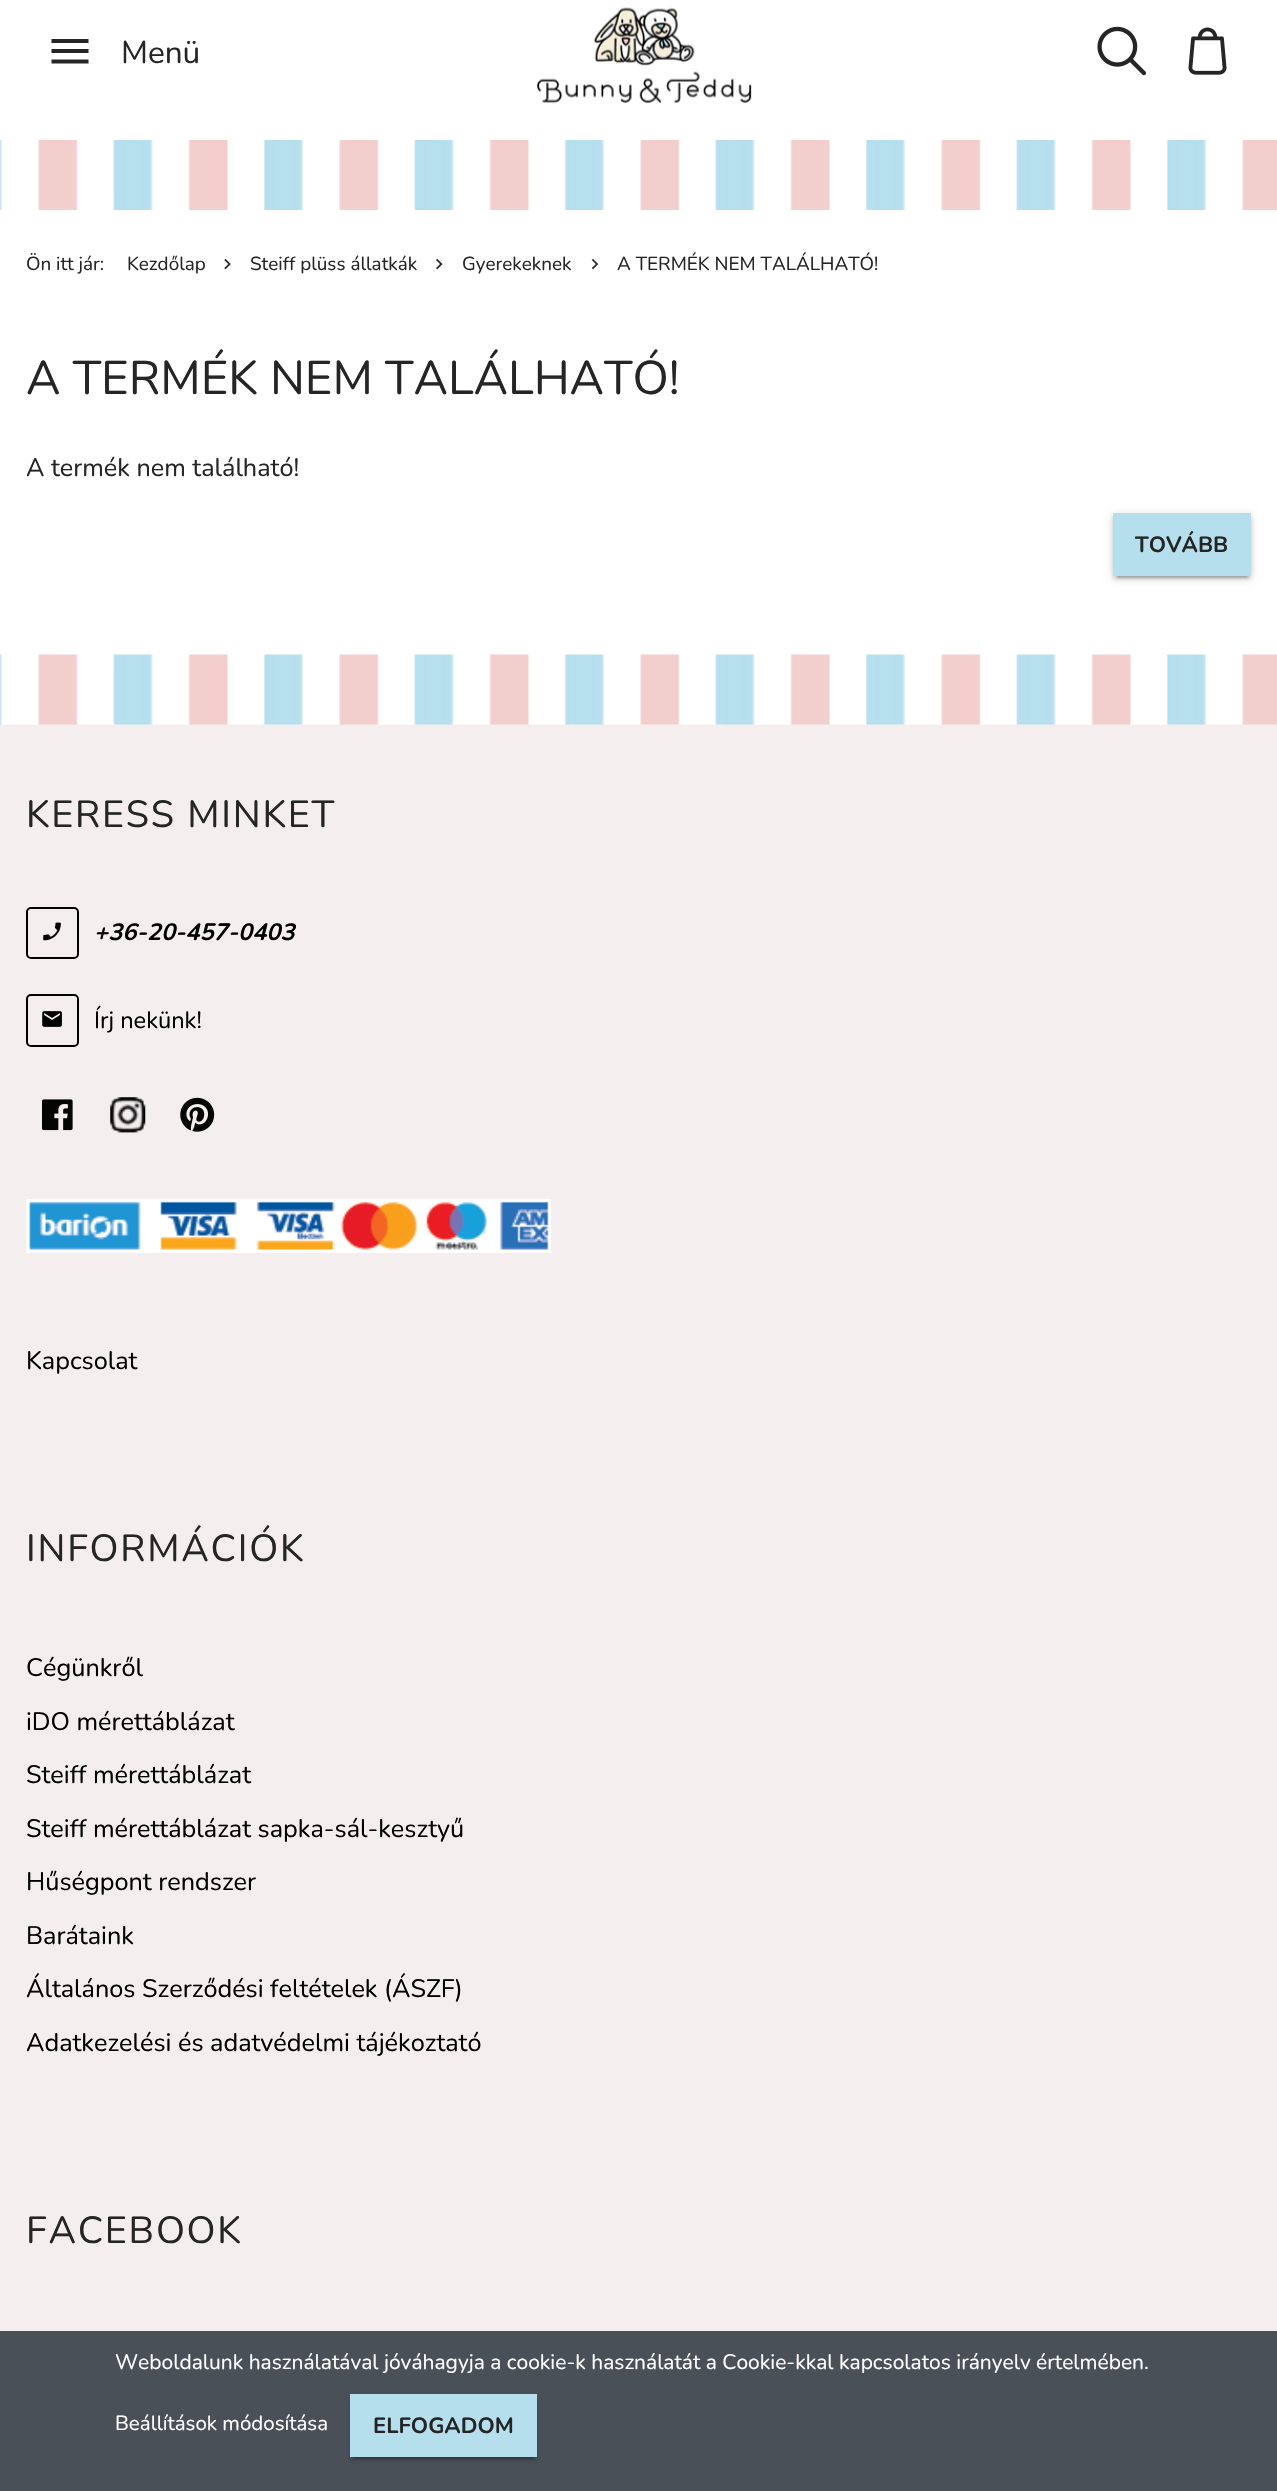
void draw(SkCanvas* canvas) {
    SkPaint paint;
    paint.setAntiAlias(true);
    auto face = [&](const char* family, int weight, float size, bool italic = false) {
        SkFontStyle style(weight, SkFontStyle::kNormal_Width,
            italic ? SkFontStyle::kItalic_Slant : SkFontStyle::kUpright_Slant);
        SkFont result(fontMgr->matchFamilyStyle(family, style), size);
        result.setSubpixel(true);
        return result;
    };
    auto write = [&](const char* s, float x, float y, const SkFont& font, SkColor color) {
        SkPaint ink(SkColor4f::FromColor(color));
        ink.setAntiAlias(true);
        canvas->drawString(s, x, y, font, ink);
    };
    auto writeSpaced = [&](const char* s, float x, float y, const SkFont& font, const SkPaint& ink, float letter, float word) {
        std::vector<SkGlyphID> glyphs(font.countText(s, strlen(s), SkTextEncoding::kUTF8));
        std::vector<float> xs(glyphs.size());
        font.textToGlyphs(s, strlen(s), SkTextEncoding::kUTF8, glyphs);
        font.getXPos(glyphs, xs, x);
        float extra = 0;
        for (size_t i = 0; i < glyphs.size(); i++) {
            xs[i] += extra;
            extra += letter + word * (glyphs[i] == font.unicharToGlyph(' '));
        }
        canvas->drawTextBlob(SkTextBlob::MakeFromPosHGlyphs(glyphs, xs, y, font), 0, 0, ink);
    };
    auto block = [&](float x, float y, float w, float h, SkColor color) {
        SkPaint ink(SkColor4f::FromColor(color));
        ink.setAntiAlias(true);
        canvas->drawRect(SkRect::MakeXYWH(x, y, w, h), ink);
    };
    auto paste = [&](const char* path, float x, float y, float w, float h) {
        auto image = SkImages::DeferredFromEncodedData(SkData::MakeFromFileName(path));
        canvas->drawImageRect(image, SkRect::MakeXYWH(x, y, w, h), SkSamplingOptions());
    };
    canvas->clear(SK_ColorWHITE);
    paint.setColor(SkColorSetRGB(37, 37, 37));
    canvas->drawPath(SkPathBuilder().moveTo(51.5f, 63.5f).lineTo(88.5f, 63.5f).lineTo(88.5f, 59.5f).lineTo(51.5f, 59.5f).close().moveTo(51.5f, 53).lineTo(88.5f, 53).lineTo(88.5f, 49).lineTo(51.5f, 49).close().moveTo(51.5f, 39).lineTo(51.5f, 43).lineTo(88.5f, 43).lineTo(88.5f, 39).close().detach(), paint);
    auto kFont1 = face("Nunito", 400, 31.5f);
    write("Menü", 121, 63, kFont1, SkColorSetRGB(37, 37, 37));
    paste("pic1.png", 536, 7, 216, 96);
    paste("pic2.png", 1097, 26, 49, 50);
    paste("pic3.png", 1188, 27, 39, 48);
    paste("pic4.png", 0, 140, 1277, 70);
    auto kFont2 = face("Nunito", 400, 18.9f);
    write("Ön itt jár:", 26, 270, kFont2, SkColorSetRGB(37, 37, 37));
    write("Kezdőlap", 127, 270, kFont2, SkColorSetRGB(37, 37, 37));
    paste("pic5.png", 224, 258, 7, 12);
    write("Steiff plüss állatkák", 250, 270, kFont2, SkColorSetRGB(37, 37, 37));
    paste("pic6.png", 436, 258, 7, 12);
    write("Gyerekeknek", 462, 270, kFont2, SkColorSetRGB(37, 37, 37));
    paste("pic7.png", 591, 259, 8, 11);
    write("A TERMÉK NEM TALÁLHATÓ!", 617, 270, kFont2, SkColorSetRGB(37, 37, 37));
    auto kFont3 = face("Nunito", 400, 47.25f);
    write("A TERMÉK NEM TALÁLHATÓ!", 26, 394, kFont3, SkColorSetRGB(37, 37, 37));
    auto kFont4 = face("Nunito", 400, 25.25f);
    write("A termék nem található!", 26, 476, kFont4, SkColorSetRGB(37, 37, 37));
    paint.setColor(SkColorSetARGB(51, 0, 0, 0));
    paint.setMaskFilter(SkMaskFilter::MakeBlur(kNormal_SkBlurStyle, 1));
    canvas->drawRect(SkRect::MakeXYWH(1117, 522, 131, 56), paint);
    paint.setMaskFilter(nullptr);
    paint.setColor(SkColorSetARGB(31, 0, 0, 0));
    paint.setMaskFilter(SkMaskFilter::MakeBlur(kNormal_SkBlurStyle, 4.5f));
    canvas->drawRect(SkRect::MakeXYWH(1113, 515, 138, 63), paint);
    paint.setMaskFilter(nullptr);
    paint.setColor(SkColorSetARGB(36, 0, 0, 0));
    paint.setMaskFilter(SkMaskFilter::MakeBlur(kNormal_SkBlurStyle, 2));
    canvas->drawRect(SkRect::MakeXYWH(1113, 516, 138, 63), paint);
    paint.setMaskFilter(nullptr);
    block(1113, 513, 138, 63, SkColorSetRGB(182, 223, 238));
    auto kFont5 = face("Nunito", 700, 22);
    write("TOVÁBB", 1135, 552, kFont5, SkColorSetRGB(37, 37, 37));
    block(0, 724, 1277, 1607, SkColorSetRGB(245, 238, 238));
    paste("pic8.png", 0, 654, 1277, 71);
    auto kFont6 = face("Nunito", 400, 37.75f);
    paint.setColor(SkColorSetRGB(37, 37, 37));
    writeSpaced("KERESS MINKET", 26, 827, kFont6, paint, 1.75f, 0);
    paint.setStyle(SkPaint::kStroke_Style);
    paint.setStrokeWidth(2);
    paint.setColor(SK_ColorBLACK);
    canvas->drawRoundRect(SkRect::MakeXYWH(27, 908, 51, 50), 4, 4, paint);
    paste("pic9.png", 43, 922, 18, 19);
    auto kFont7 = face("Nunito", 700, 23.6f, true);
    write("+36-20-457-0403", 94, 940, kFont7, SK_ColorBLACK);
    canvas->drawRoundRect(SkRect::MakeXYWH(27, 995, 51, 51), 4, 4, paint);
    paste("pic10.png", 42, 1011, 20, 16);
    auto kFont8 = face("Nunito", 400, 23.6f);
    write("Írj nekünk!", 94, 1028, kFont8, SK_ColorBLACK);
    paste("pic11.png", 42, 1099, 31, 32);
    paste("pic12.png", 110, 1097, 36, 36);
    paste("pic13.png", 180, 1097, 35, 35);
    paste("pic14.png", 26, 1198, 526, 55);
    write("Kapcsolat", 26, 1369, kFont4, SK_ColorBLACK);
    paint.setStyle(SkPaint::kFill_Style);
    paint.setColor(SkColorSetRGB(37, 37, 37));
    writeSpaced("INFORMÁCIÓK", 26, 1561, kFont6, paint, 1.75f, 0);
    write("Cégünkről", 26, 1676, kFont4, SK_ColorBLACK);
    write("iDO mérettáblázat", 26, 1730, kFont4, SK_ColorBLACK);
    write("Steiff mérettáblázat", 26, 1783, kFont4, SK_ColorBLACK);
    write("Steiff mérettáblázat sapka-sál-kesztyű", 26, 1837, kFont4, SK_ColorBLACK);
    write("Hűségpont rendszer", 26, 1890, kFont4, SK_ColorBLACK);
    write("Barátaink", 26, 1944, kFont4, SK_ColorBLACK);
    write("Általános Szerződési feltételek (ÁSZF)", 26, 1997, kFont4, SK_ColorBLACK);
    write("Adatkezelési és adatvédelmi tájékoztató", 26, 2051, kFont4, SK_ColorBLACK);
    writeSpaced("FACEBOOK", 26, 2243, kFont6, paint, 1.75f, 0);
    block(0, 2331, 1277, 160, SkColorSetRGB(73, 80, 87));
    auto kFont9 = face("Nunito", 400, 21);
    write("Weboldalunk használatával jóváhagyja a cookie-k használatát a Cookie-kkal kapcsolatos irányelv értelmében.", 115, 2369, kFont9, SK_ColorWHITE);
    auto kFont10 = face("Nunito", 400, 20.5f);
    write("Beállítások módosítása", 115, 2430, kFont10, SK_ColorWHITE);
    paint.setColor(SkColorSetARGB(51, 0, 0, 0));
    paint.setMaskFilter(SkMaskFilter::MakeBlur(kNormal_SkBlurStyle, 1));
    canvas->drawRect(SkRect::MakeXYWH(354, 2403, 180, 56), paint);
    paint.setMaskFilter(nullptr);
    paint.setColor(SkColorSetARGB(36, 0, 0, 0));
    paint.setMaskFilter(SkMaskFilter::MakeBlur(kNormal_SkBlurStyle, 2));
    canvas->drawRect(SkRect::MakeXYWH(350, 2398, 187, 63), paint);
    paint.setMaskFilter(nullptr);
    block(350, 2394, 187, 63, SkColorSetRGB(182, 223, 238));
    write("ELFOGADOM", 373, 2433, kFont5, SkColorSetRGB(37, 37, 37));
}
